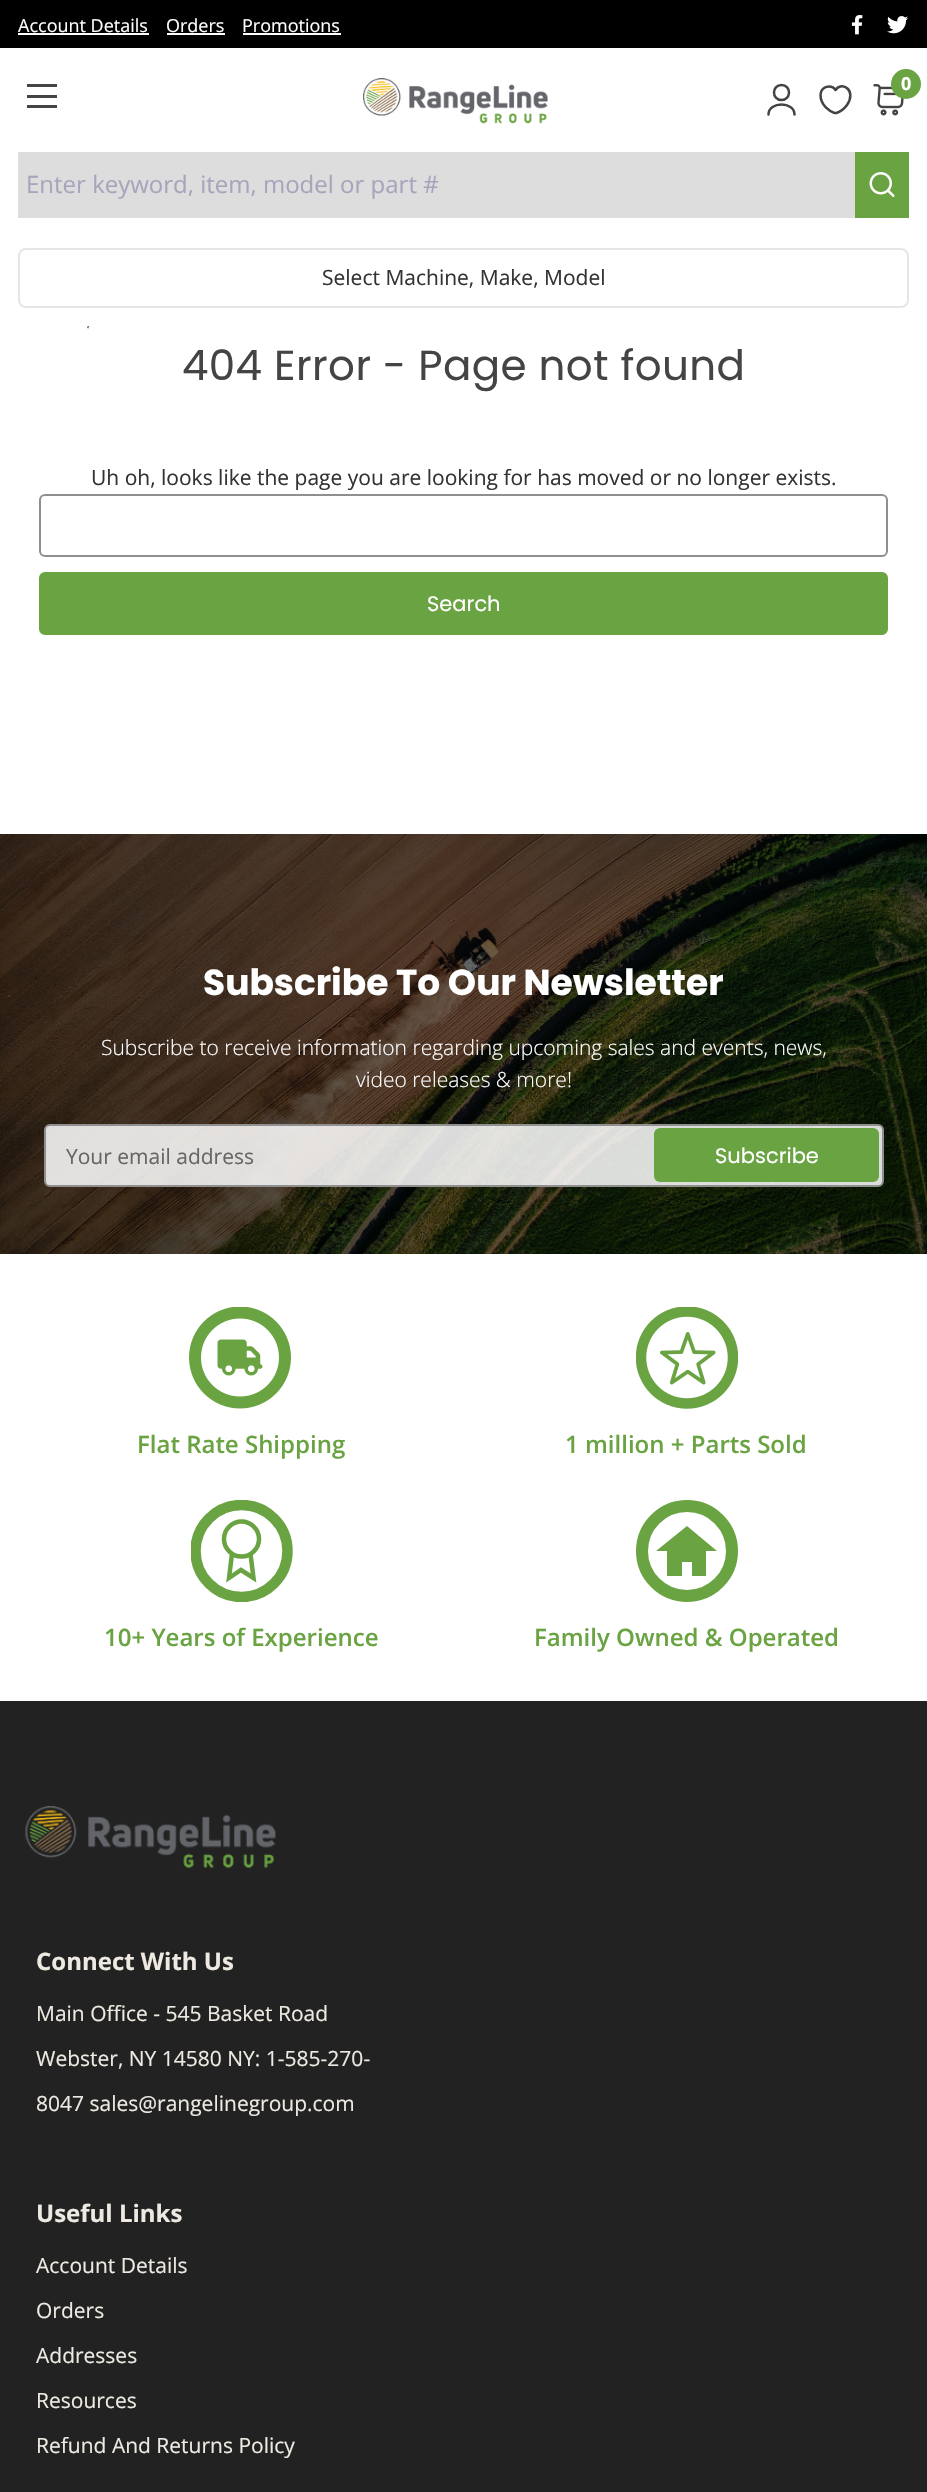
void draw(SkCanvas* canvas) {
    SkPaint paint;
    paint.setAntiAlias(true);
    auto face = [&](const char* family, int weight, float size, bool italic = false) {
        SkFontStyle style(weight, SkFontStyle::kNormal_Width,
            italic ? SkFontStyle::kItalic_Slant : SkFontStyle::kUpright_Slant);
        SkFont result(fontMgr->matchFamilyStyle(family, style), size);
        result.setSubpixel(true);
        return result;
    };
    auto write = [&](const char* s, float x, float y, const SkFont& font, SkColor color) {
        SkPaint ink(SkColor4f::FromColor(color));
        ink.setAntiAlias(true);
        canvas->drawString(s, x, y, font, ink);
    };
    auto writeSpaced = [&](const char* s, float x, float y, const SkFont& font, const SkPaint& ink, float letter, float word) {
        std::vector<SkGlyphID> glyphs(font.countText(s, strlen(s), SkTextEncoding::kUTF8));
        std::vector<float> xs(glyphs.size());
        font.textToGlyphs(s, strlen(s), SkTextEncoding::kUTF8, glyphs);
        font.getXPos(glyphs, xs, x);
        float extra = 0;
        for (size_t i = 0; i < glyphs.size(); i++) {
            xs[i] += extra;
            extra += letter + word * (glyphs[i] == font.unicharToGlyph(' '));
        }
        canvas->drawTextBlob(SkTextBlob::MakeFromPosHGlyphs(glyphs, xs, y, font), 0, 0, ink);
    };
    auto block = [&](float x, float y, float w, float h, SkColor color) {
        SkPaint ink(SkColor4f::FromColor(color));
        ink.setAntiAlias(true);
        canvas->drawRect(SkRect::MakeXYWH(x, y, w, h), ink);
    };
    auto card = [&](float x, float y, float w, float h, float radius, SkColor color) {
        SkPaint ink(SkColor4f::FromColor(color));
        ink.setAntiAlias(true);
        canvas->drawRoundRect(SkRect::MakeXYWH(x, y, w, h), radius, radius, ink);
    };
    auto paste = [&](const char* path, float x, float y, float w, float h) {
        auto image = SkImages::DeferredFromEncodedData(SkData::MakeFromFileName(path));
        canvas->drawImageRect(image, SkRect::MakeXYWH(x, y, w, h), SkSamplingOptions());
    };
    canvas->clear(SK_ColorWHITE);
    paint.setColor(SkColorSetRGB(117, 117, 117));
    canvas->drawPath(SkPathBuilder().moveTo(91, 313).lineTo(92.5f, 313.5f).lineTo(88.5f, 328.5f).lineTo(87, 328).close().detach(), paint);
    block(87, 313, 6, 13, SK_ColorWHITE);
    block(0, 0, 927, 48, SK_ColorBLACK);
    auto kFont1 = face("Open Sans", 400, 18);
    write("Account Details", 18, 32, kFont1, SK_ColorWHITE);
    block(18, 33, 131, 2, SK_ColorWHITE);
    write("Orders", 166, 32, kFont1, SK_ColorWHITE);
    block(167, 33, 58, 2, SK_ColorWHITE);
    write("Promotions", 242, 32, kFont1, SK_ColorWHITE);
    block(243, 33, 98, 2, SK_ColorWHITE);
    paste("pic1.png", 851, 15, 12, 20);
    paste("pic2.png", 887, 16, 21, 18);
    block(27, 95, 30, 3, SkColorSetRGB(68, 68, 68));
    block(27, 84, 30, 3, SkColorSetRGB(68, 68, 68));
    block(27, 105, 30, 3, SkColorSetRGB(68, 68, 68));
    paste("pic3.png", 363, 78, 185, 46);
    paint.setStyle(SkPaint::kStroke_Style);
    paint.setStrokeWidth(2.5f);
    paint.setStrokeCap(SkPaint::kRound_Cap);
    paint.setStrokeJoin(SkPaint::kRound_Join);
    paint.setColor(SkColorSetRGB(67, 67, 67));
    canvas->drawPath(SkPathBuilder().moveTo(781.5f, 100).cubicTo(791.5f, 100, 791.5f, 85, 781.5f, 85).cubicTo(771.5f, 85, 771.5f, 100, 781.5f, 100).close().moveTo(794.5f, 114.5f).cubicTo(794.5f, 101, 768.5f, 101, 768.5f, 114.5f).detach(), paint);
    canvas->drawPath(SkPathBuilder().moveTo(836.5f, 113).lineTo(834.5f, 113).cubicTo(830, 111.5f, 820.5f, 105.5f, 820.5f, 95).cubicTo(820.5f, 90, 824, 86.5f, 829, 86.5f).cubicTo(831.5f, 86.5f, 834, 87.5f, 835.5f, 90).cubicTo(842, 80.5f, 857, 90.5f, 847, 105).cubicTo(844.5f, 108.5f, 840.5f, 111.5f, 836.5f, 113).close().detach(), paint);
    paste("pic4.png", 873, 84, 31, 32);
    paint.setStyle(SkPaint::kFill_Style);
    paint.setColor(SkColorSetRGB(106, 163, 66));
    canvas->drawCircle(906, 84, 15, paint);
    auto kFont2 = face("Open Sans", 700, 18);
    write("0", 901, 90, kFont2, SK_ColorWHITE);
    block(18, 152, 837, 66, SkColorSetRGB(221, 221, 222));
    auto kFont3 = face("Open Sans", 400, 24);
    write("Enter keyword, item, model or part #", 26, 193, kFont3, SkColorSetRGB(166, 165, 187));
    block(855, 152, 54, 66, SkColorSetRGB(106, 163, 66));
    paste("pic5.png", 869, 172, 26, 25);
    paint.setStyle(SkPaint::kStroke_Style);
    paint.setStrokeWidth(2);
    paint.setStrokeCap(SkPaint::kButt_Cap);
    paint.setStrokeJoin(SkPaint::kMiter_Join);
    paint.setColor(SkColorSetRGB(230, 230, 230));
    canvas->drawRoundRect(SkRect::MakeXYWH(19, 249, 889, 58), 7, 7, paint);
    auto kFont4 = face("Open Sans", 400, 21);
    write("Select Machine, Make, Model", 322, 285, kFont4, SkColorSetRGB(51, 51, 51));
    auto kFont5 = face("Poppins", 400, 42);
    paint.setStyle(SkPaint::kFill_Style);
    paint.setColor(SkColorSetRGB(68, 68, 68));
    writeSpaced("404 Error - Page not found", 182, 380, kFont5, paint, 0.4f, 0);
    write("Uh oh, looks like the page you are looking for has moved or no longer exists.", 91, 485, kFont4, SkColorSetRGB(51, 51, 51));
    paint.setStyle(SkPaint::kStroke_Style);
    paint.setColor(SkColorSetRGB(143, 143, 143));
    canvas->drawRoundRect(SkRect::MakeXYWH(40, 495, 847, 61), 5, 5, paint);
    paint.setStyle(SkPaint::kFill_Style);
    paint.setColor(SkColorSetRGB(106, 163, 66));
    canvas->drawRoundRect(SkRect::MakeXYWH(40, 573, 847, 61), 5, 5, paint);
    paint.setStyle(SkPaint::kStroke_Style);
    canvas->drawRoundRect(SkRect::MakeXYWH(40, 573, 847, 61), 5, 5, paint);
    auto kFont6 = face("Poppins", 400, 21);
    write("Search", 427, 611, kFont6, SK_ColorWHITE);
    paste("pic6.png", 0, 834, 927, 420);
    auto kFont7 = face("Poppins", 700, 36);
    write("Subscribe To Our Newsletter", 203, 995, kFont7, SK_ColorWHITE);
    auto kFont8 = face("Open Sans", 300, 21);
    write("Subscribe to receive information regarding upcoming sales and events, news,", 101, 1055, kFont8, SK_ColorWHITE);
    write("video releases & more!", 356, 1087, kFont8, SK_ColorWHITE);
    paint.setStyle(SkPaint::kFill_Style);
    paint.setColor(SkColorSetARGB(217, 255, 255, 255));
    canvas->drawRoundRect(SkRect::MakeXYWH(45, 1125, 838, 61), 5, 5, paint);
    paint.setStyle(SkPaint::kStroke_Style);
    paint.setColor(SkColorSetRGB(143, 143, 143));
    canvas->drawRoundRect(SkRect::MakeXYWH(45, 1125, 838, 61), 5, 5, paint);
    write("Your email address", 66, 1164, kFont4, SkColorSetRGB(102, 102, 102));
    card(654, 1128, 225, 54, 6, SkColorSetRGB(106, 163, 66));
    write("Subscribe", 715, 1163, kFont6, SK_ColorWHITE);
    paste("pic7.png", 189, 1307, 102, 102);
    auto kFont9 = face("Open Sans", 600, 24);
    write("Flat Rate Shipping", 137, 1453, kFont9, SkColorSetRGB(106, 163, 66));
    paste("pic8.png", 636, 1307, 102, 102);
    write("1 million + Parts Sold", 565, 1453, kFont9, SkColorSetRGB(106, 163, 66));
    canvas->save();
    canvas->clipRect(SkRect::MakeXYWH(191, 1500, 102, 102));
    paint.setStrokeWidth(10.5f);
    paint.setColor(SkColorSetRGB(106, 163, 66));
    canvas->drawCircle(241.5f, 1551, 46, paint);
    canvas->restore();
    paint.setStrokeWidth(4.5f);
    canvas->drawPath(SkPathBuilder().moveTo(241.5f, 1556.5f).cubicTo(251, 1556.5f, 259, 1548.5f, 259, 1539).cubicTo(259, 1529.5f, 251, 1521.5f, 241.5f, 1521.5f).cubicTo(232, 1521.5f, 224, 1529.5f, 224, 1539).cubicTo(224, 1548.5f, 232, 1556.5f, 241.5f, 1556.5f).close().detach(), paint);
    canvas->drawPath(SkPathBuilder().moveTo(232, 1554).lineTo(229, 1578).lineTo(241, 1570).lineTo(253.5f, 1578).lineTo(250.5f, 1554).detach(), paint);
    write("10+ Years of Experience", 104, 1646, kFont9, SkColorSetRGB(106, 163, 66));
    paint.setStrokeWidth(12);
    canvas->drawCircle(687, 1551, 45, paint);
    paint.setStyle(SkPaint::kFill_Style);
    canvas->drawPath(SkPathBuilder().moveTo(667, 1551).lineTo(667, 1576).lineTo(682, 1576).lineTo(682, 1562).lineTo(692, 1562).lineTo(692, 1576).lineTo(706, 1576).lineTo(706, 1551).lineTo(717, 1551).lineTo(687, 1526).lineTo(656, 1551).close().detach(), paint);
    write("Family Owned & Operated", 534, 1646, kFont9, SkColorSetRGB(106, 163, 66));
    block(0, 1701, 927, 791, SkColorSetRGB(34, 34, 34));
    paste("pic9.png", 25, 1806, 251, 63);
    auto kFont10 = face("Open Sans", 700, 24);
    write("Connect With Us", 36, 1970, kFont10, SkColorSetRGB(238, 234, 226));
    write("Main Office - 545 Basket Road", 36, 2021, kFont4, SkColorSetRGB(238, 234, 226));
    write("Webster, NY 14580 NY: 1-585-270-", 36, 2066, kFont4, SkColorSetRGB(238, 234, 226));
    write("8047 sales@rangelinegroup.com", 36, 2111, kFont4, SkColorSetRGB(238, 234, 226));
    write("Useful Links", 36, 2222, kFont10, SkColorSetRGB(238, 234, 226));
    write("Account Details", 36, 2273, kFont4, SkColorSetRGB(238, 234, 226));
    write("Orders", 36, 2318, kFont4, SkColorSetRGB(238, 234, 226));
    write("Addresses", 36, 2363, kFont4, SkColorSetRGB(238, 234, 226));
    write("Resources", 36, 2408, kFont4, SkColorSetRGB(238, 234, 226));
    write("Refund And Returns Policy", 36, 2453, kFont4, SkColorSetRGB(238, 234, 226));
}
